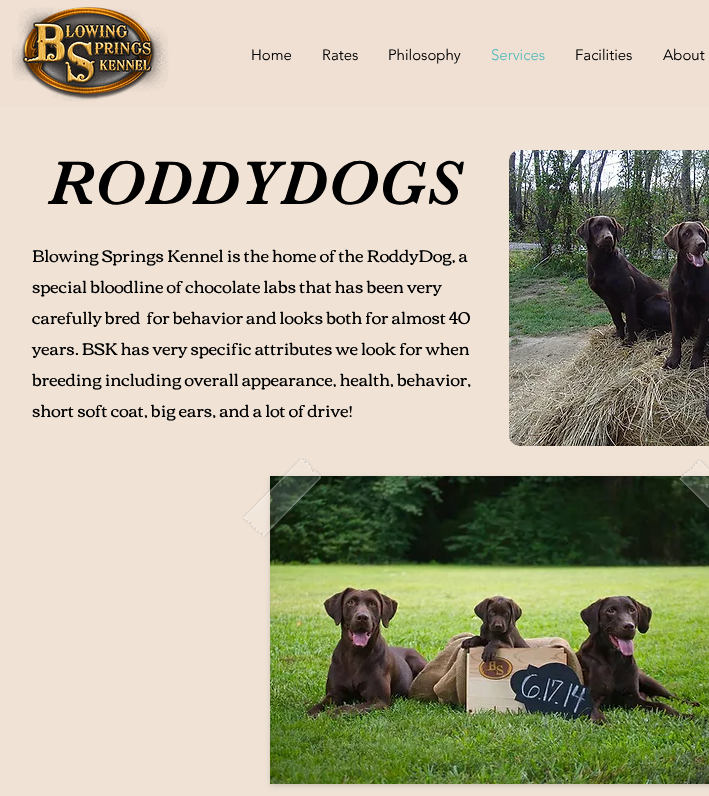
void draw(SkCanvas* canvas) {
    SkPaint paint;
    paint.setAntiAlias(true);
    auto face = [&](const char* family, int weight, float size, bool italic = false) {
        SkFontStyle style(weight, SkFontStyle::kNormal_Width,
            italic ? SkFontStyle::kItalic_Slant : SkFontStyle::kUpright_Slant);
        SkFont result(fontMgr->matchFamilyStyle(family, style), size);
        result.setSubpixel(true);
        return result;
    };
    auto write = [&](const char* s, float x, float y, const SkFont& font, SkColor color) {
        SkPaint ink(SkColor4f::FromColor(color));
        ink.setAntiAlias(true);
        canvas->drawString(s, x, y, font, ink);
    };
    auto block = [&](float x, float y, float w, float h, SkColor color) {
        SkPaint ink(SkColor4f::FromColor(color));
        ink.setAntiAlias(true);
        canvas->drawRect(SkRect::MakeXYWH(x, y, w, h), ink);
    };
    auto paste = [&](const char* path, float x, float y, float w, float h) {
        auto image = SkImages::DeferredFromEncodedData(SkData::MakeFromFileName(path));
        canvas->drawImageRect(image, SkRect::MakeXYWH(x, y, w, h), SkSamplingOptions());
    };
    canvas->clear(SkColorSetRGB(240, 227, 214));
    block(0, 0, 709, 106, SkColorSetRGB(239, 224, 211));
    paste("pic1.png", 12, 7, 157, 95);
    auto kFont1 = face("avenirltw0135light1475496", 300, 15);
    write("Home", 251, 60, kFont1, SK_ColorBLACK);
    write("Rates", 322, 60, kFont1, SK_ColorBLACK);
    write("Philosophy", 388, 60, kFont1, SK_ColorBLACK);
    write("Services", 491, 60, kFont1, SkColorSetRGB(87, 187, 191));
    write("Facilities", 575, 60, kFont1, SK_ColorBLACK);
    write("About", 663, 60, kFont1, SK_ColorBLACK);
    auto kFont2 = face("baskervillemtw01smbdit", 400, 64);
    write("RODDYDOGS", 48, 204, kFont2, SK_ColorBLACK);
    paste("pic2.png", 509, 150, 200, 296);
    auto kFont3 = face("Corben", 400, 17);
    write("Blowing Springs Kennel is the home of the RoddyDog, a", 32, 262, kFont3, SK_ColorBLACK);
    write("special bloodline of chocolate labs that has been very", 32, 293, kFont3, SK_ColorBLACK);
    write("carefully bred  for behavior and looks both for almost 40", 32, 324, kFont3, SK_ColorBLACK);
    write("years. BSK has very specific attributes we look for when", 32, 355, kFont3, SK_ColorBLACK);
    write("breeding including overall appearance, health, behavior,", 32, 386, kFont3, SK_ColorBLACK);
    write("short soft coat, big ears, and a lot of drive!", 32, 417, kFont3, SK_ColorBLACK);
    paint.setColor(SkColorSetARGB(38, 0, 0, 0));
    paint.setMaskFilter(SkMaskFilter::MakeBlur(kNormal_SkBlurStyle, 2.5f));
    canvas->drawRect(SkRect::MakeXYWH(270, 478, 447, 308), paint);
    paint.setMaskFilter(nullptr);
    paste("pic5.png", 270, 476, 439, 308);
    paste("pic3.png", 242, 458, 80, 80);
    paste("pic4.png", 679, 459, 30, 49);
}
